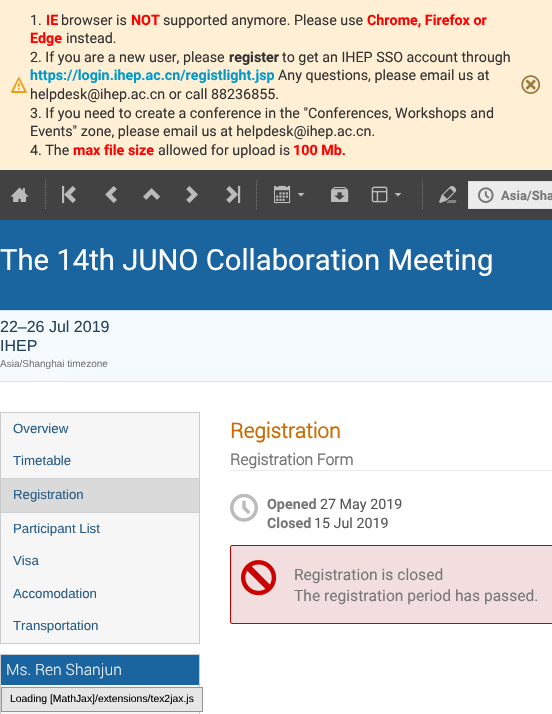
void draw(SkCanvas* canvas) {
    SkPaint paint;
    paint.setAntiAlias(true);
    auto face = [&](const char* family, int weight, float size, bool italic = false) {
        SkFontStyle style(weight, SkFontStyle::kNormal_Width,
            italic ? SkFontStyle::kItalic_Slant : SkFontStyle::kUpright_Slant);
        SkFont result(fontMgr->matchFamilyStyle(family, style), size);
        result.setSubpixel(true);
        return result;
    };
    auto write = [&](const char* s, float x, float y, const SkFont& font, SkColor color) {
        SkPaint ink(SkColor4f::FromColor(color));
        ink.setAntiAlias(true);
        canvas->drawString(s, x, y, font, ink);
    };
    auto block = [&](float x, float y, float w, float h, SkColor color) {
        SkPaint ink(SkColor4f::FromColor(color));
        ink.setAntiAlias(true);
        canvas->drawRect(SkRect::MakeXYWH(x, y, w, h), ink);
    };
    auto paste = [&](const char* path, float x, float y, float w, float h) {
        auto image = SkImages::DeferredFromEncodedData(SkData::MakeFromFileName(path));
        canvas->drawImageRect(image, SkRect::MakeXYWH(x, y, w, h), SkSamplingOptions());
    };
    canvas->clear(SK_ColorWHITE);
    block(0, 0, 552, 170, SkColorSetRGB(255, 239, 212));
    paste("pic1.png", 11, 77, 16, 16);
    auto kFont1 = face("Roboto", 400, 14.3f);
    write("1.", 30, 25, kFont1, SkColorSetRGB(51, 51, 51));
    auto kFont2 = face("Roboto", 700, 14.3f);
    write("IE", 46, 25, kFont2, SkColorSetRGB(255, 0, 0));
    write("browser is", 61, 25, kFont1, SkColorSetRGB(51, 51, 51));
    write("NOT", 131, 25, kFont2, SkColorSetRGB(255, 0, 0));
    write("supported anymore. Please use", 163, 25, kFont1, SkColorSetRGB(51, 51, 51));
    write("Chrome, Firefox or", 367, 25, kFont2, SkColorSetRGB(255, 0, 0));
    write("Edge", 30, 43, kFont2, SkColorSetRGB(255, 0, 0));
    write("instead.", 66, 43, kFont1, SkColorSetRGB(51, 51, 51));
    write("2. If you are a new user, please", 30, 62, kFont1, SkColorSetRGB(51, 51, 51));
    write("register", 229, 62, kFont2, SkColorSetRGB(51, 51, 51));
    write("to get an IHEP SSO account through", 282, 62, kFont1, SkColorSetRGB(51, 51, 51));
    write("https://login.ihep.ac.cn/registlight.jsp", 30, 80, kFont2, SkColorSetRGB(0, 153, 204));
    write("Any questions, please email us at", 278, 80, kFont1, SkColorSetRGB(51, 51, 51));
    write("helpdesk@ihep.ac.cn or call 88236855.", 30, 99, kFont1, SkColorSetRGB(51, 51, 51));
    write("3. If you need to create a conference in the \"Conferences, Workshops and", 30, 118, kFont1, SkColorSetRGB(51, 51, 51));
    write("Events\" zone, please email us at helpdesk@ihep.ac.cn.", 30, 136, kFont1, SkColorSetRGB(51, 51, 51));
    write("4. The", 30, 155, kFont1, SkColorSetRGB(51, 51, 51));
    write("max file size", 73, 155, kFont2, SkColorSetRGB(255, 0, 0));
    write("allowed for upload is", 158, 155, kFont1, SkColorSetRGB(51, 51, 51));
    write("100 Mb.", 293, 155, kFont2, SkColorSetRGB(255, 0, 0));
    paste("pic2.png", 521, 75, 20, 19);
    block(0, 170, 552, 50, SkColorSetRGB(66, 66, 66));
    paste("pic3.png", 11, 187, 18, 15);
    paint.setStyle(SkPaint::kStroke_Style);
    paint.setStrokeWidth(1);
    paint.setColor(SkColorSetRGB(119, 119, 119));
    paint.setPathEffect(SkDashPathEffect::Make({{1, 1}}, 0));
    canvas->drawPath(SkPathBuilder().moveTo(45.5f, 180).lineTo(45.5f, 210).detach(), paint);
    paint.setPathEffect(nullptr);
    paste("pic4.png", 62, 185, 14, 19);
    paste("pic5.png", 105, 186, 12, 17);
    paste("pic6.png", 143, 188, 17, 12);
    paste("pic7.png", 186, 186, 12, 17);
    paste("pic8.png", 226, 185, 15, 19);
    paint.setPathEffect(SkDashPathEffect::Make({{1, 1}}, 0));
    canvas->drawPath(SkPathBuilder().moveTo(256.5f, 180).lineTo(256.5f, 210).detach(), paint);
    paint.setPathEffect(nullptr);
    paste("pic9.png", 274, 185, 17, 19);
    paint.setStyle(SkPaint::kFill_Style);
    paint.setColor(SkColorSetRGB(187, 187, 187));
    canvas->drawPath(SkPathBuilder().moveTo(297.5f, 193).lineTo(301, 196.5f).lineTo(304.5f, 193).close().detach(), paint);
    paste("pic10.png", 331, 187, 18, 15);
    paste("pic11.png", 371, 186, 17, 17);
    canvas->drawPath(SkPathBuilder().moveTo(394.5f, 193).lineTo(398, 196.5f).lineTo(401.5f, 193).close().detach(), paint);
    paint.setStyle(SkPaint::kStroke_Style);
    paint.setColor(SkColorSetRGB(119, 119, 119));
    paint.setPathEffect(SkDashPathEffect::Make({{1, 1}}, 0));
    canvas->drawPath(SkPathBuilder().moveTo(422.5f, 180).lineTo(422.5f, 210).detach(), paint);
    paint.setPathEffect(nullptr);
    paste("pic12.png", 439, 186, 18, 17);
    block(469, 182, 83, 26, SkColorSetRGB(236, 236, 236));
    block(468, 181, 84, 1, SkColorSetRGB(223, 223, 223));
    block(468, 208, 84, 1, SkColorSetRGB(223, 223, 223));
    block(468, 181, 1, 28, SkColorSetRGB(223, 223, 223));
    paste("pic13.png", 478, 187, 16, 16);
    auto kFont3 = face("Roboto", 700, 13);
    write("Asia/Sha", 501, 200, kFont3, SkColorSetRGB(119, 119, 119));
    block(0, 220, 552, 90, SkColorSetRGB(26, 100, 160));
    auto kFont4 = face("Roboto", 400, 29.3f);
    write("The 14th JUNO Collaboration Meeting", 0, 270, kFont4, SK_ColorWHITE);
    block(0, 311, 552, 70, SkColorSetRGB(245, 250, 255));
    block(0, 310, 552, 1, SkColorSetRGB(213, 228, 241));
    block(0, 381, 552, 1, SkColorSetRGB(213, 228, 241));
    auto kFont5 = face("Liberation Sans", 400, 16);
    write("22–26 Jul 2019", 0, 332, kFont5, SkColorSetRGB(36, 66, 90));
    write("IHEP", 0, 351, kFont5, SkColorSetRGB(36, 66, 90));
    auto kFont6 = face("Liberation Sans", 400, 10);
    write("Asia/Shanghai timezone", 0, 367, kFont6, SkColorSetRGB(119, 119, 119));
    paint.setStyle(SkPaint::kFill_Style);
    paint.setColor(SkColorSetRGB(246, 246, 246));
    canvas->drawRect(SkRect::MakeXYWH(0.5f, 412.5f, 199, 231), paint);
    paint.setStyle(SkPaint::kStroke_Style);
    paint.setColor(SkColorSetRGB(204, 204, 204));
    canvas->drawRect(SkRect::MakeXYWH(0.5f, 412.5f, 199, 231), paint);
    auto kFont7 = face("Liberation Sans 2", 400, 13.25f);
    write("Overview", 13, 433, kFont7, SkColorSetRGB(39, 92, 134));
    write("Timetable", 13, 465, kFont7, SkColorSetRGB(39, 92, 134));
    block(1, 479, 198, 33, SkColorSetRGB(218, 218, 218));
    block(1, 478, 198, 1, SkColorSetRGB(208, 208, 208));
    block(1, 512, 198, 1, SkColorSetRGB(208, 208, 208));
    write("Registration", 13, 499, kFont7, SkColorSetRGB(39, 92, 134));
    write("Participant List", 13, 533, kFont7, SkColorSetRGB(39, 92, 134));
    write("Visa", 13, 565, kFont7, SkColorSetRGB(39, 92, 134));
    write("Accomodation", 13, 598, kFont7, SkColorSetRGB(39, 92, 134));
    write("Transportation", 13, 630, kFont7, SkColorSetRGB(39, 92, 134));
    block(1, 685, 198, 29, SkColorSetRGB(246, 246, 246));
    canvas->drawRect(SkRect::MakeXYWH(0.5f, 654.5f, 199, 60), paint);
    block(1, 655, 198, 30, SkColorSetRGB(26, 100, 160));
    auto kFont8 = face("Roboto", 300, 15.6f);
    write("Ms. Ren Shanjun", 6, 675, kFont8, SkColorSetRGB(243, 243, 243));
    block(230, 470, 322, 1, SkColorSetRGB(235, 235, 235));
    auto kFont9 = face("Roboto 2", 700, 20.75f);
    write("Registration", 230, 438, kFont9, SkColorSetRGB(203, 109, 4));
    auto kFont10 = face("Roboto 2", 700, 15.6f);
    write("Registration Form", 230, 465, kFont10, SkColorSetRGB(119, 119, 119));
    paste("pic14.png", 230, 494, 28, 28);
    write("Opened", 267, 509, kFont2, SkColorSetRGB(119, 119, 119));
    write("27 May 2019", 320, 509, kFont1, SkColorSetRGB(85, 85, 85));
    write("Closed", 267, 528, kFont2, SkColorSetRGB(119, 119, 119));
    write("15 Jul 2019", 314, 528, kFont1, SkColorSetRGB(85, 85, 85));
    paint.setStyle(SkPaint::kFill_Style);
    paint.setColor(SkColorSetRGB(242, 222, 222));
    canvas->drawRoundRect(SkRect::MakeXYWH(230.5f, 545.5f, 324, 78), 1.5f, 1.5f, paint);
    paint.setStyle(SkPaint::kStroke_Style);
    paint.setColor(SkColorSetRGB(204, 0, 0));
    canvas->drawRoundRect(SkRect::MakeXYWH(230.5f, 545.5f, 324, 78), 1.5f, 1.5f, paint);
    paste("pic15.png", 241, 560, 36, 36);
    auto kFont11 = face("Roboto", 400, 15.6f);
    write("Registration is closed", 294, 580, kFont11, SkColorSetRGB(119, 119, 119));
    write("The registration period has passed.", 294, 601, kFont11, SkColorSetRGB(119, 119, 119));
    paint.setStyle(SkPaint::kFill_Style);
    paint.setColor(SkColorSetRGB(230, 230, 230));
    canvas->drawRect(SkRect::MakeXYWH(1.5f, 687.5f, 201, 24), paint);
    paint.setStyle(SkPaint::kStroke_Style);
    paint.setColor(SkColorSetRGB(149, 149, 149));
    canvas->drawRect(SkRect::MakeXYWH(1.5f, 687.5f, 201, 24), paint);
    auto kFont12 = face("Liberation Sans", 400, 10.4f);
    write("Loading [MathJax]/extensions/tex2jax.js", 10, 702, kFont12, SK_ColorBLACK);
}
